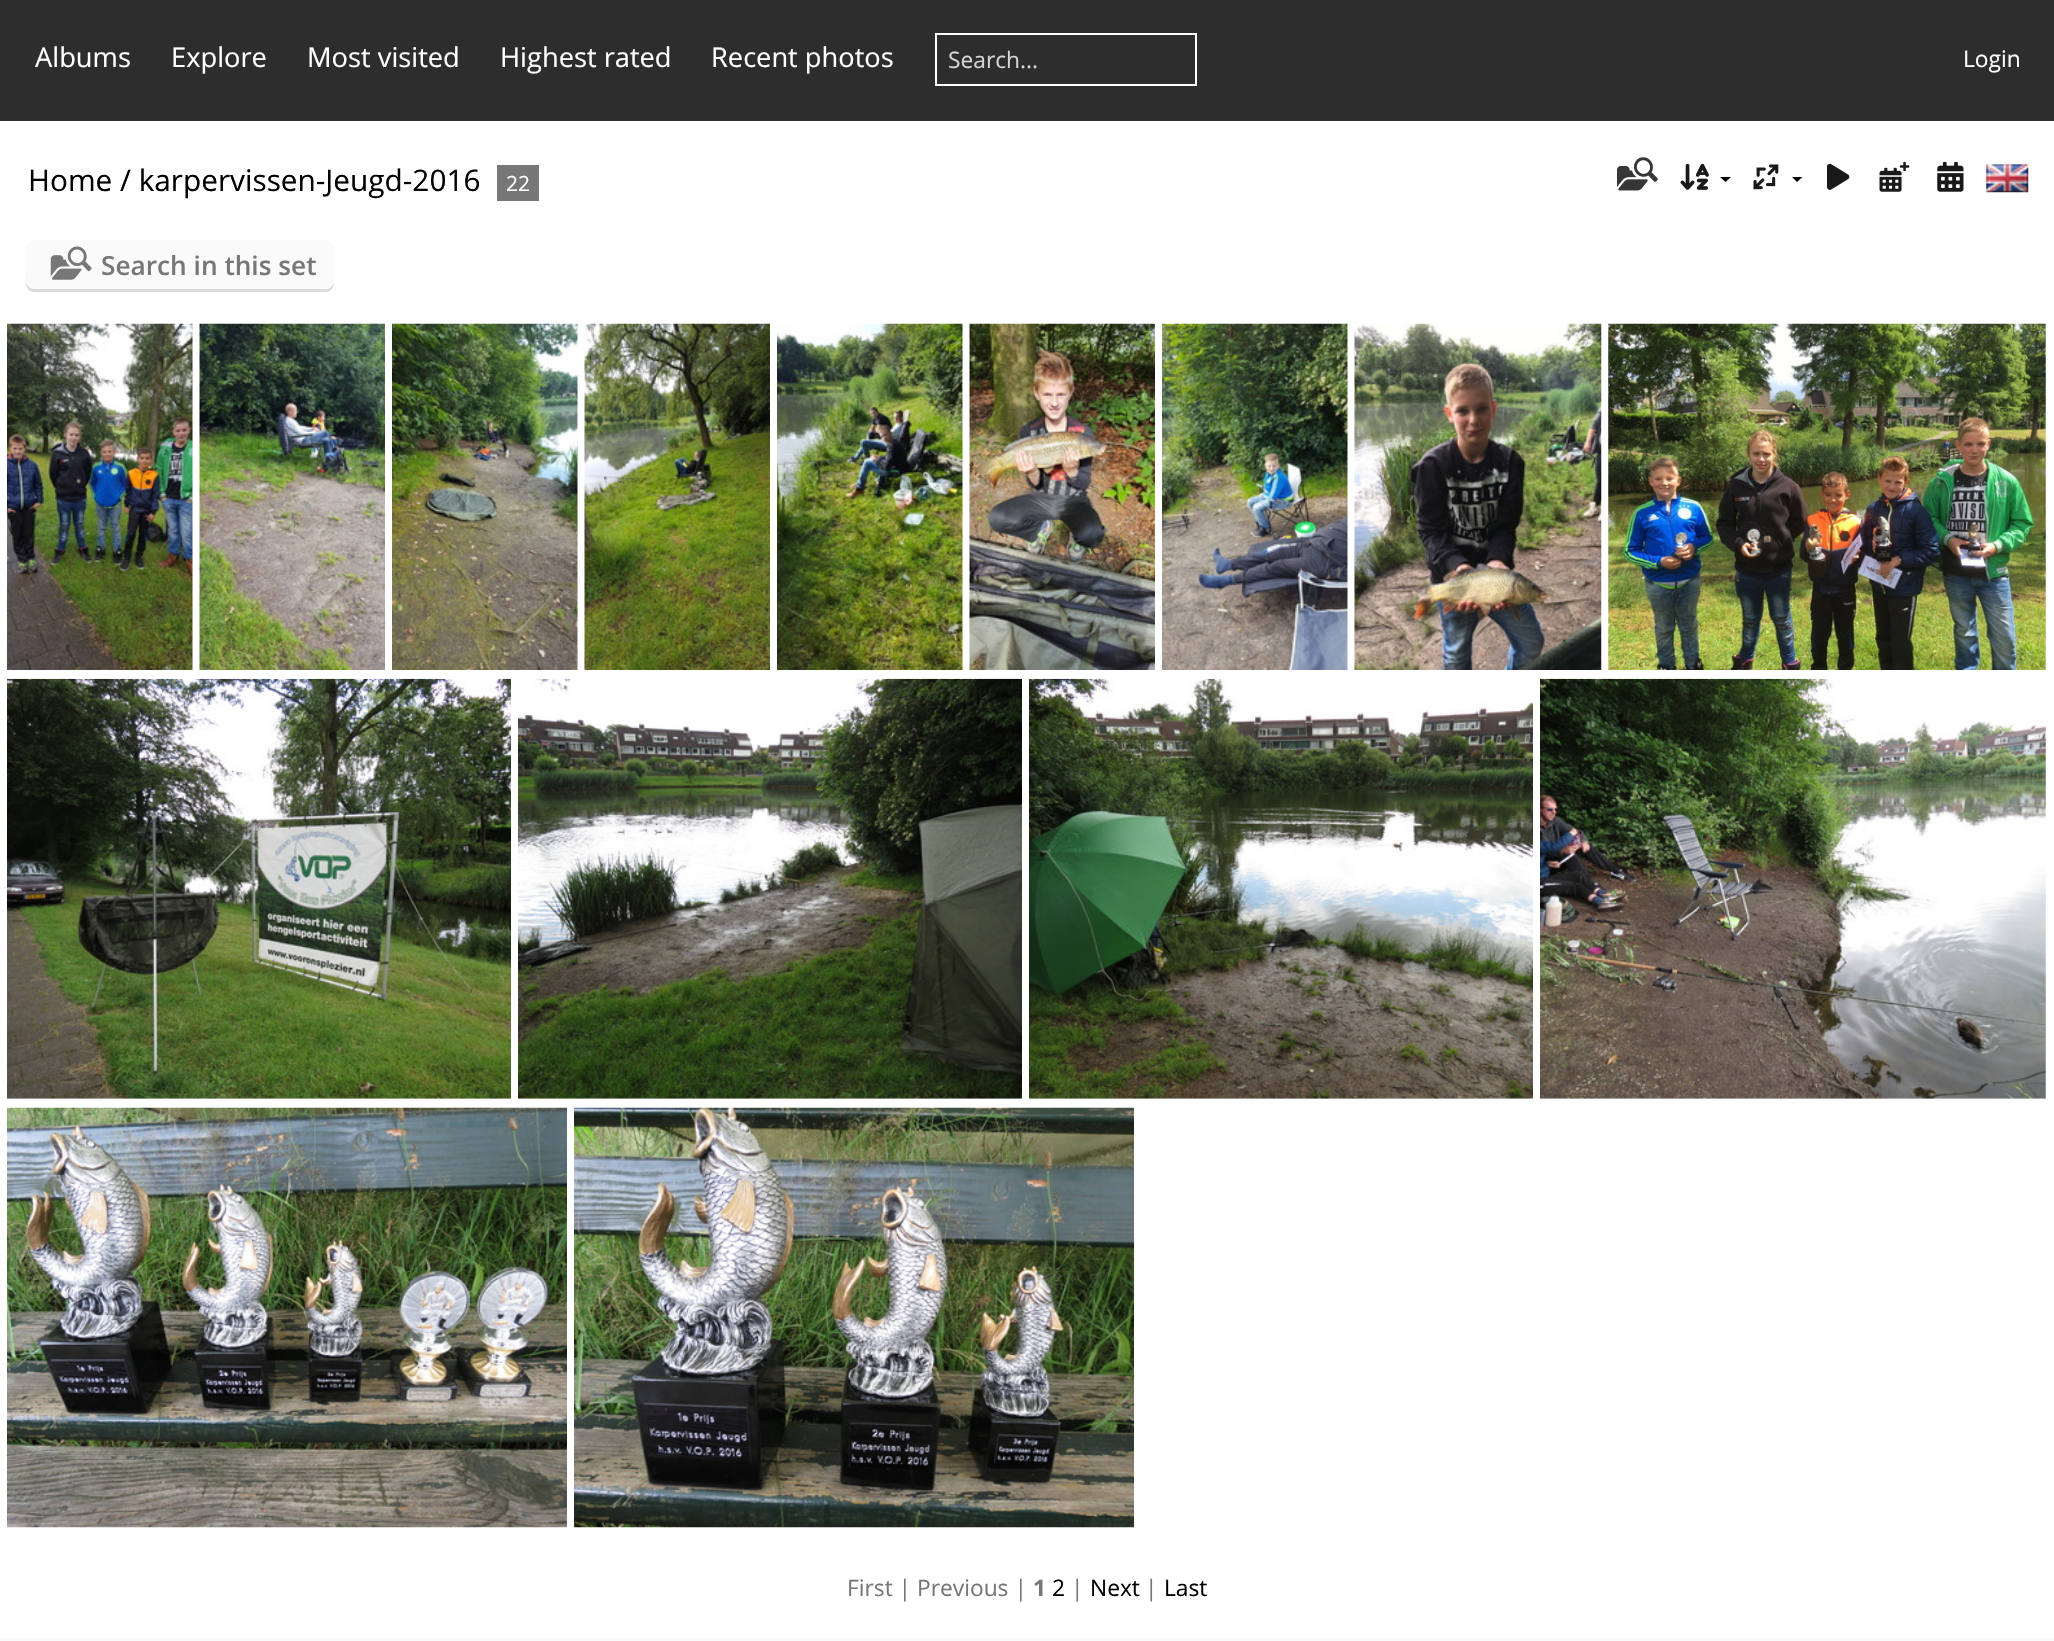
void draw(SkCanvas* canvas) {
    SkPaint paint;
    paint.setAntiAlias(true);
    auto face = [&](const char* family, int weight, float size, bool italic = false) {
        SkFontStyle style(weight, SkFontStyle::kNormal_Width,
            italic ? SkFontStyle::kItalic_Slant : SkFontStyle::kUpright_Slant);
        SkFont result(fontMgr->matchFamilyStyle(family, style), size);
        result.setSubpixel(true);
        return result;
    };
    auto write = [&](const char* s, float x, float y, const SkFont& font, SkColor color) {
        SkPaint ink(SkColor4f::FromColor(color));
        ink.setAntiAlias(true);
        canvas->drawString(s, x, y, font, ink);
    };
    auto block = [&](float x, float y, float w, float h, SkColor color) {
        SkPaint ink(SkColor4f::FromColor(color));
        ink.setAntiAlias(true);
        canvas->drawRect(SkRect::MakeXYWH(x, y, w, h), ink);
    };
    auto card = [&](float x, float y, float w, float h, float radius, SkColor color) {
        SkPaint ink(SkColor4f::FromColor(color));
        ink.setAntiAlias(true);
        canvas->drawRoundRect(SkRect::MakeXYWH(x, y, w, h), radius, radius, ink);
    };
    auto paste = [&](const char* path, float x, float y, float w, float h) {
        auto image = SkImages::DeferredFromEncodedData(SkData::MakeFromFileName(path));
        canvas->drawImageRect(image, SkRect::MakeXYWH(x, y, w, h), SkSamplingOptions());
    };
    canvas->clear(SK_ColorWHITE);
    block(0, 0, 2054, 121, SkColorSetRGB(45, 45, 45));
    auto kFont1 = face("Open Sans", 400, 27.25f);
    write("Albums", 35, 67, kFont1, SK_ColorWHITE);
    write("Explore", 171, 67, kFont1, SK_ColorWHITE);
    write("Most visited", 307, 67, kFont1, SK_ColorWHITE);
    write("Highest rated", 500, 67, kFont1, SK_ColorWHITE);
    write("Recent photos", 711, 67, kFont1, SK_ColorWHITE);
    paint.setStyle(SkPaint::kStroke_Style);
    paint.setStrokeWidth(2);
    paint.setColor(SK_ColorWHITE);
    canvas->drawRect(SkRect::MakeXYWH(936, 34, 260, 51), paint);
    auto kFont2 = face("Open Sans", 400, 22.75f);
    write("Search...", 948, 68, kFont2, SkColorSetRGB(214, 214, 214));
    write("Login", 1963, 67, kFont2, SK_ColorWHITE);
    auto kFont3 = face("Open Sans", 400, 29.75f);
    write("Home / karpervissen-Jeugd-2016", 28, 191, kFont3, SK_ColorBLACK);
    block(497, 165, 42, 36, SkColorSetRGB(119, 119, 119));
    auto kFont4 = face("Open Sans", 400, 21);
    write("22", 506, 191, kFont4, SK_ColorWHITE);
    paste("pic1.png", 1617, 157, 41, 34);
    paste("pic2.png", 1680, 163, 29, 27);
    paint.setStyle(SkPaint::kFill_Style);
    paint.setColor(SK_ColorBLACK);
    canvas->drawPath(SkPathBuilder().moveTo(1720, 177).lineTo(1731, 177).lineTo(1725.5f, 182).close().detach(), paint);
    paste("pic3.png", 1753, 164, 26, 26);
    canvas->drawPath(SkPathBuilder().moveTo(1792, 177).lineTo(1802.5f, 177).lineTo(1797, 182).close().detach(), paint);
    paste("pic4.png", 1827, 163, 23, 27);
    paste("pic5.png", 1879, 161, 31, 31);
    paste("pic6.png", 1937, 161, 27, 31);
    paste("pic7.png", 1986, 164, 43, 29);
    paint.setColor(SkColorSetRGB(219, 219, 219));
    canvas->drawPath(SkPathBuilder().moveTo(26, 250).lineTo(26, 273).cubicTo(26, 280, 24, 292, 35, 292).lineTo(325, 292).cubicTo(331, 292, 334, 287, 334, 282).cubicTo(333, 286, 330, 289, 326, 289).lineTo(35, 289).cubicTo(30, 289, 26, 285, 26, 280).close().detach(), paint);
    card(26, 240, 308, 49, 9, SkColorSetRGB(250, 250, 250));
    paste("pic8.png", 50, 246, 42, 34);
    auto kFont5 = face("Open Sans", 600, 26.25f);
    write("Search in this set", 101, 275, kFont5, SkColorSetRGB(119, 119, 119));
    paste("pic9.png", 7, 323, 186, 347);
    paste("pic10.png", 199, 323, 186, 347);
    paste("pic11.png", 392, 323, 186, 347);
    paste("pic12.png", 584, 323, 186, 347);
    paste("pic13.png", 777, 323, 186, 347);
    paste("pic14.png", 969, 323, 186, 347);
    paste("pic15.png", 1162, 323, 186, 347);
    paste("pic16.png", 1354, 323, 248, 347);
    paste("pic17.png", 1608, 323, 438, 347);
    paste("pic18.png", 7, 678, 504, 421);
    paste("pic19.png", 518, 678, 504, 421);
    paste("pic20.png", 1029, 678, 504, 421);
    paste("pic21.png", 1540, 678, 506, 421);
    paste("pic22.png", 7, 1107, 560, 421);
    paste("pic23.png", 574, 1107, 560, 421);
    write("First | Previous |", 847, 1596, kFont2, SkColorSetRGB(119, 119, 119));
    auto kFont6 = face("Open Sans", 700, 22.75f);
    write("1", 1033, 1596, kFont6, SkColorSetRGB(119, 119, 119));
    write("2", 1052, 1596, kFont2, SK_ColorBLACK);
    write("|", 1071, 1596, kFont2, SkColorSetRGB(119, 119, 119));
    write("Next", 1090, 1596, kFont2, SK_ColorBLACK);
    write("|", 1145, 1596, kFont2, SkColorSetRGB(119, 119, 119));
    write("Last", 1164, 1596, kFont2, SK_ColorBLACK);
    block(0, 1638, 2054, 3, SkColorSetRGB(249, 249, 249));
}
